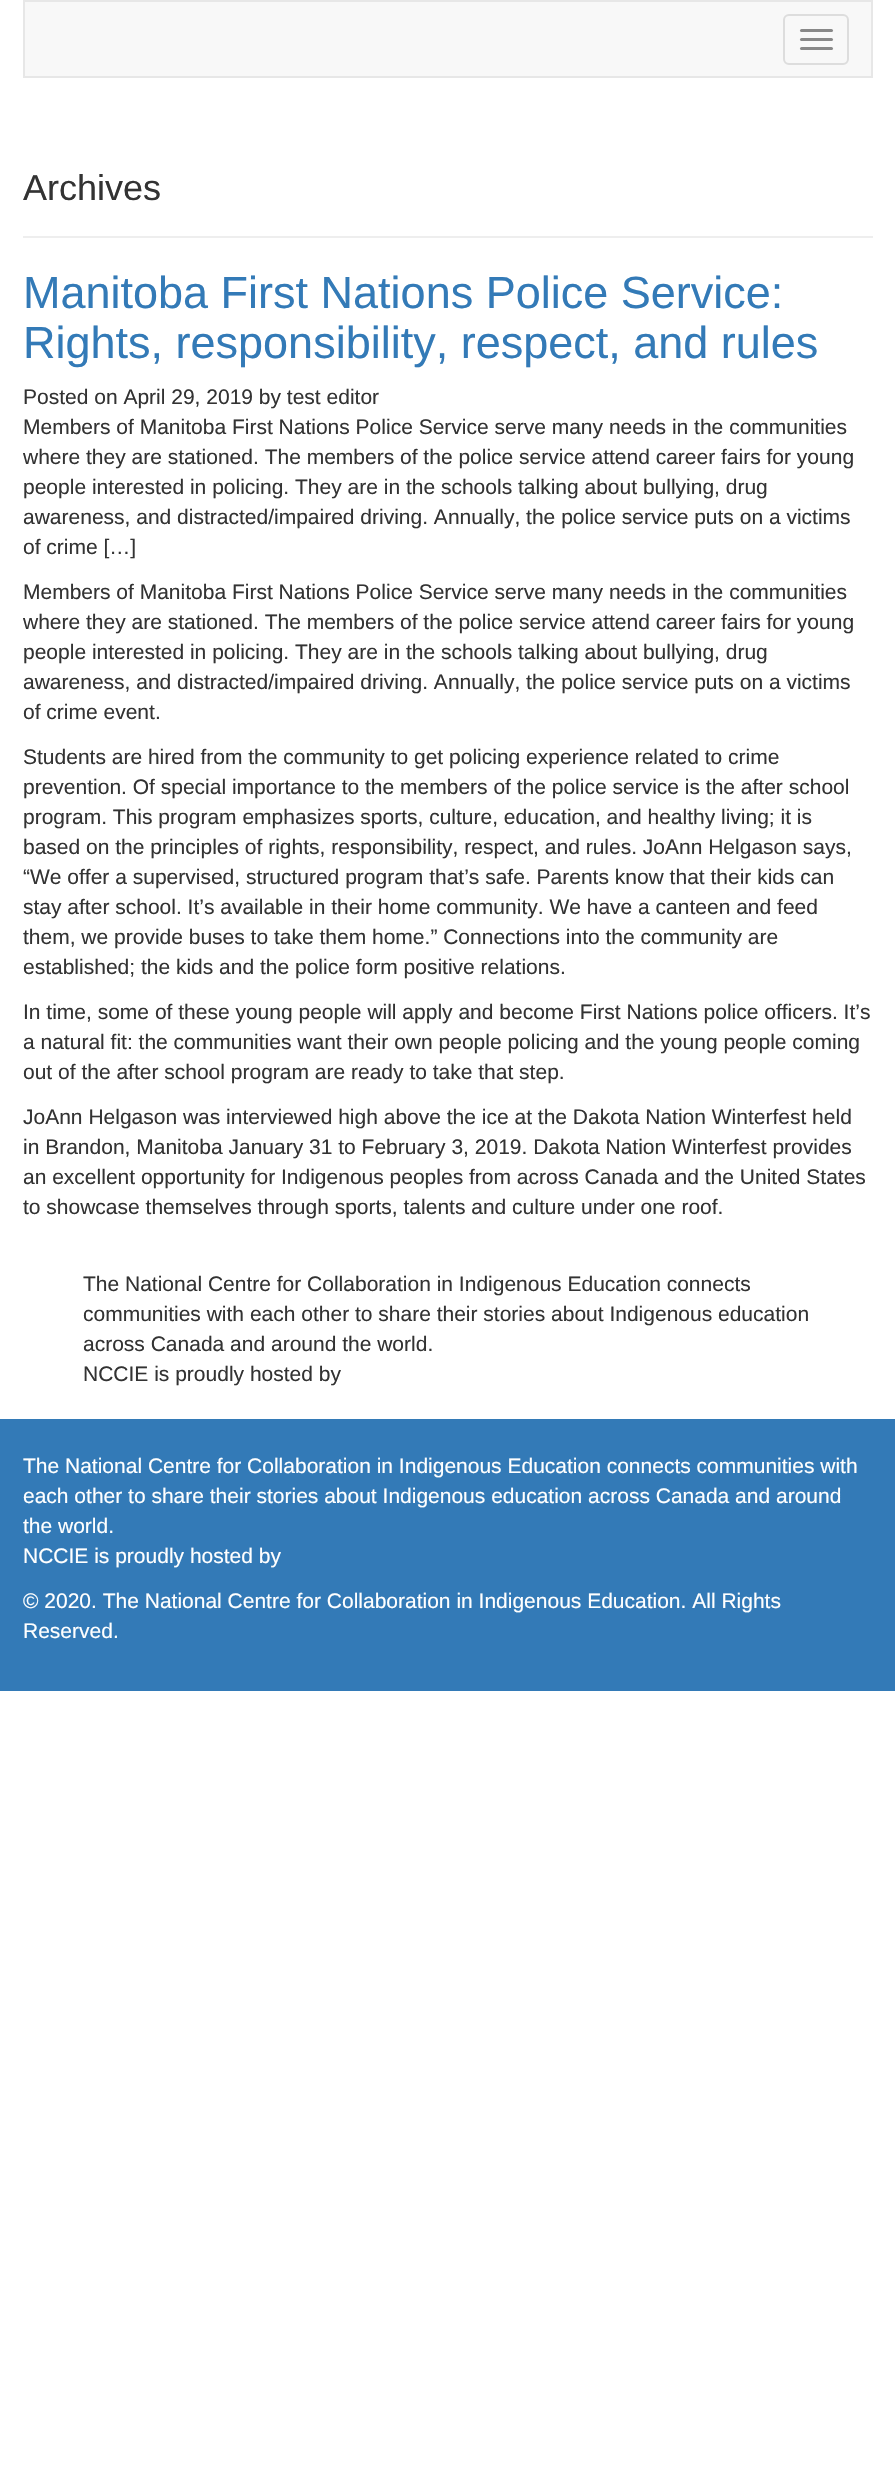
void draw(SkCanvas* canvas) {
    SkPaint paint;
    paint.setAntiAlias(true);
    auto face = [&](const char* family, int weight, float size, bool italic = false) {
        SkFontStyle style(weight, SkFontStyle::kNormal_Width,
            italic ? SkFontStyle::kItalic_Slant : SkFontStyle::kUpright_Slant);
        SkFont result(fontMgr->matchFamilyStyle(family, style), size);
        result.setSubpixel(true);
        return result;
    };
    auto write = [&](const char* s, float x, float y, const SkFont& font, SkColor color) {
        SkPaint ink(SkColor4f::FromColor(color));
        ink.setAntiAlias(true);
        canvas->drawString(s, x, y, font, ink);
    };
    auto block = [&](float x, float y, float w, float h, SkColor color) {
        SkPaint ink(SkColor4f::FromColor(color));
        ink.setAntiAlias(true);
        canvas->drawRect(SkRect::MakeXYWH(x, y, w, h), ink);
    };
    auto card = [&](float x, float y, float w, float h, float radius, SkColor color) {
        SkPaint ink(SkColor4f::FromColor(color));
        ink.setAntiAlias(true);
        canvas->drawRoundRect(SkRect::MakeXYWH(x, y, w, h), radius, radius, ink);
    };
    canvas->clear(SK_ColorWHITE);
    paint.setColor(SkColorSetRGB(248, 248, 248));
    canvas->drawRect(SkRect::MakeXYWH(24, 1, 848, 76), paint);
    paint.setStyle(SkPaint::kStroke_Style);
    paint.setStrokeWidth(2);
    paint.setColor(SkColorSetRGB(231, 231, 231));
    canvas->drawRect(SkRect::MakeXYWH(24, 1, 848, 76), paint);
    paint.setColor(SkColorSetRGB(221, 221, 221));
    canvas->drawRoundRect(SkRect::MakeXYWH(784, 15, 64, 49), 5, 5, paint);
    card(800, 29, 33, 3, 1.5f, SkColorSetRGB(136, 136, 136));
    card(800, 38, 33, 3, 1.5f, SkColorSetRGB(136, 136, 136));
    card(800, 47, 33, 3, 1.5f, SkColorSetRGB(136, 136, 136));
    block(23, 236, 850, 2, SkColorSetRGB(238, 238, 238));
    auto kFont1 = face("Liberation Sans", 400, 36);
    write("Archives", 23, 200, kFont1, SkColorSetRGB(51, 51, 51));
    auto kFont2 = face("Liberation Sans", 400, 45);
    write("Manitoba First Nations Police Service:", 23, 308, kFont2, SkColorSetRGB(51, 122, 183));
    write("Rights, responsibility, respect, and rules", 23, 358, kFont2, SkColorSetRGB(51, 122, 183));
    auto kFont3 = face("Liberation Sans", 400, 21);
    write("Posted on April 29, 2019 by test editor", 23, 404, kFont3, SkColorSetRGB(51, 51, 51));
    write("Members of Manitoba First Nations Police Service serve many needs in the communities", 23, 434, kFont3, SkColorSetRGB(51, 51, 51));
    write("where they are stationed. The members of the police service attend career fairs for young", 23, 464, kFont3, SkColorSetRGB(51, 51, 51));
    write("people interested in policing. They are in the schools talking about bullying, drug", 23, 494, kFont3, SkColorSetRGB(51, 51, 51));
    write("awareness, and distracted/impaired driving. Annually, the police service puts on a victims", 23, 524, kFont3, SkColorSetRGB(51, 51, 51));
    write("of crime […]", 23, 554, kFont3, SkColorSetRGB(51, 51, 51));
    write("Members of Manitoba First Nations Police Service serve many needs in the communities", 23, 599, kFont3, SkColorSetRGB(51, 51, 51));
    write("where they are stationed. The members of the police service attend career fairs for young", 23, 629, kFont3, SkColorSetRGB(51, 51, 51));
    write("people interested in policing. They are in the schools talking about bullying, drug", 23, 659, kFont3, SkColorSetRGB(51, 51, 51));
    write("awareness, and distracted/impaired driving. Annually, the police service puts on a victims", 23, 689, kFont3, SkColorSetRGB(51, 51, 51));
    write("of crime event.", 23, 719, kFont3, SkColorSetRGB(51, 51, 51));
    write("Students are hired from the community to get policing experience related to crime", 23, 764, kFont3, SkColorSetRGB(51, 51, 51));
    write("prevention. Of special importance to the members of the police service is the after school", 23, 794, kFont3, SkColorSetRGB(51, 51, 51));
    write("program. This program emphasizes sports, culture, education, and healthy living; it is", 23, 824, kFont3, SkColorSetRGB(51, 51, 51));
    write("based on the principles of rights, responsibility, respect, and rules. JoAnn Helgason says,", 23, 854, kFont3, SkColorSetRGB(51, 51, 51));
    write("“We offer a supervised, structured program that’s safe. Parents know that their kids can", 23, 884, kFont3, SkColorSetRGB(51, 51, 51));
    write("stay after school. It’s available in their home community. We have a canteen and feed", 23, 914, kFont3, SkColorSetRGB(51, 51, 51));
    write("them, we provide buses to take them home.” Connections into the community are", 23, 944, kFont3, SkColorSetRGB(51, 51, 51));
    write("established; the kids and the police form positive relations.", 23, 974, kFont3, SkColorSetRGB(51, 51, 51));
    write("In time, some of these young people will apply and become First Nations police officers. It’s", 23, 1019, kFont3, SkColorSetRGB(51, 51, 51));
    write("a natural fit: the communities want their own people policing and the young people coming", 23, 1049, kFont3, SkColorSetRGB(51, 51, 51));
    write("out of the after school program are ready to take that step.", 23, 1079, kFont3, SkColorSetRGB(51, 51, 51));
    write("JoAnn Helgason was interviewed high above the ice at the Dakota Nation Winterfest held", 23, 1124, kFont3, SkColorSetRGB(51, 51, 51));
    write("in Brandon, Manitoba January 31 to February 3, 2019. Dakota Nation Winterfest provides", 23, 1154, kFont3, SkColorSetRGB(51, 51, 51));
    write("an excellent opportunity for Indigenous peoples from across Canada and the United States", 23, 1184, kFont3, SkColorSetRGB(51, 51, 51));
    write("to showcase themselves through sports, talents and culture under one roof.", 23, 1214, kFont3, SkColorSetRGB(51, 51, 51));
    write("The National Centre for Collaboration in Indigenous Education connects", 83, 1291, kFont3, SkColorSetRGB(51, 51, 51));
    write("communities with each other to share their stories about Indigenous education", 83, 1321, kFont3, SkColorSetRGB(51, 51, 51));
    write("across Canada and around the world.", 83, 1351, kFont3, SkColorSetRGB(51, 51, 51));
    write("NCCIE is proudly hosted by", 83, 1381, kFont3, SkColorSetRGB(51, 51, 51));
    block(0, 1419, 895, 272, SkColorSetRGB(51, 122, 183));
    write("The National Centre for Collaboration in Indigenous Education connects communities with", 23, 1473, kFont3, SK_ColorWHITE);
    write("each other to share their stories about Indigenous education across Canada and around", 23, 1503, kFont3, SK_ColorWHITE);
    write("the world.", 23, 1533, kFont3, SK_ColorWHITE);
    write("NCCIE is proudly hosted by", 23, 1563, kFont3, SK_ColorWHITE);
    write("© 2020. The National Centre for Collaboration in Indigenous Education. All Rights", 23, 1608, kFont3, SK_ColorWHITE);
    write("Reserved.", 23, 1638, kFont3, SK_ColorWHITE);
}
